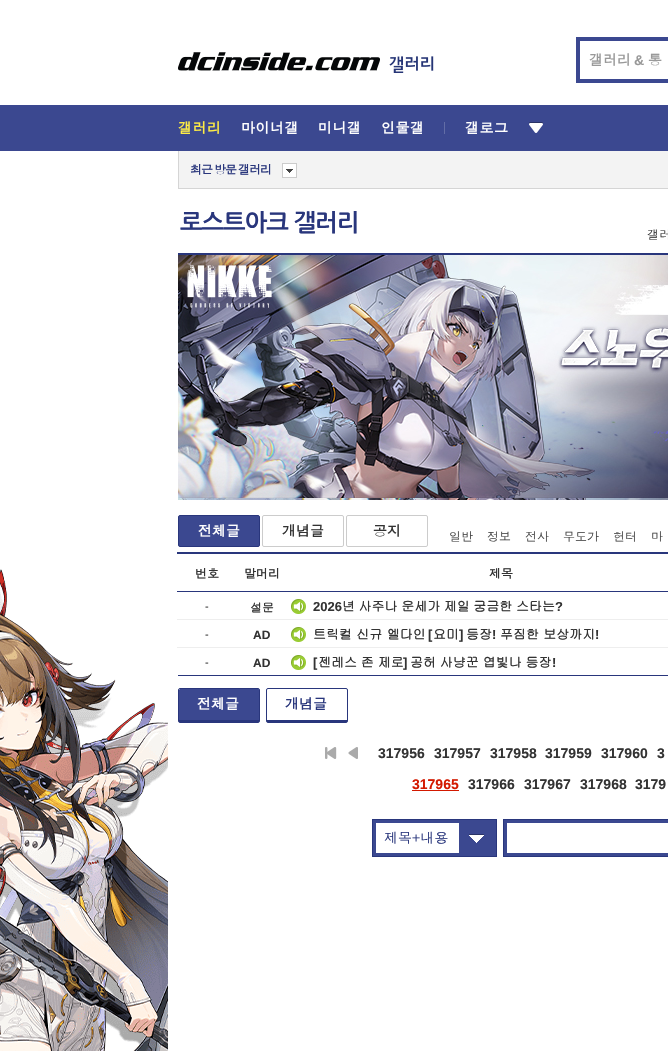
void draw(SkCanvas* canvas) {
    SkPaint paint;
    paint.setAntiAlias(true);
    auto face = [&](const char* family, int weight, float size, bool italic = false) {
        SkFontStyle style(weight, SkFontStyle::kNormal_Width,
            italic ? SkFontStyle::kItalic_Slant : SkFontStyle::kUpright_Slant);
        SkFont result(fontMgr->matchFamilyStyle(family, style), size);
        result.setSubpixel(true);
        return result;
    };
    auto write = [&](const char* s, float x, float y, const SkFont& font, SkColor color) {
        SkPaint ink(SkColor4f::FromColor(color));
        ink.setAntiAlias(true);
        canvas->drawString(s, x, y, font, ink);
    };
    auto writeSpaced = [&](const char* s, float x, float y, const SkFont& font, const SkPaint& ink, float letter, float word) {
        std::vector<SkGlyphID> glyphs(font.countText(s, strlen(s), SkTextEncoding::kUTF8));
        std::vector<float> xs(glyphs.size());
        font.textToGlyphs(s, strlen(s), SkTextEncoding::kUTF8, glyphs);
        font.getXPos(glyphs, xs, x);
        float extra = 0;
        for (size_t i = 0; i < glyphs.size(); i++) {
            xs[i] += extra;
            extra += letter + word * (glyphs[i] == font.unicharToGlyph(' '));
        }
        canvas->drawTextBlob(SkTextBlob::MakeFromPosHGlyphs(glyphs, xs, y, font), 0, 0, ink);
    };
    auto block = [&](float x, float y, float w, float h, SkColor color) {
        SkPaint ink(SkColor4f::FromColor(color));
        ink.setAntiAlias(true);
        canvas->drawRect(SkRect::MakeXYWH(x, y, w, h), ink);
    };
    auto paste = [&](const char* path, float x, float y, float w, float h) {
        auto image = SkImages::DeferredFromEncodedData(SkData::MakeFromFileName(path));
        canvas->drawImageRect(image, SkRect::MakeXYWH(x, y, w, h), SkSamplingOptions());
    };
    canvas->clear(SK_ColorWHITE);
    paste("pic1.png", 178, 52, 202, 19);
    paste("pic2.png", 389, 56, 45, 17);
    block(576, 37, 92, 46, SkColorSetRGB(59, 72, 144));
    block(580, 41, 88, 38, SK_ColorWHITE);
    auto kFont1 = face("Dotum", 700, 14);
    write("갤러리", 589, 65, kFont1, SkColorSetRGB(153, 153, 153));
    auto kFont2 = face("Liberation Sans", 700, 14);
    write("&", 634, 65, kFont2, SkColorSetRGB(153, 153, 153));
    write("통", 648, 65, kFont1, SkColorSetRGB(153, 153, 153));
    block(0, 105, 668, 46, SkColorSetRGB(59, 72, 144));
    paint.setColor(SkColorSetRGB(255, 237, 68));
    writeSpaced("갤러리", 178, 133, kFont1, paint, 0.5f, 0);
    paint.setColor(SK_ColorWHITE);
    writeSpaced("마이너갤", 241, 133, kFont1, paint, 0.5f, 0);
    writeSpaced("미니갤", 318, 133, kFont1, paint, 0.5f, 0);
    writeSpaced("인물갤", 381, 133, kFont1, paint, 0.5f, 0);
    block(444, 122, 1, 12, SkColorSetRGB(98, 109, 166));
    writeSpaced("갤로그", 465, 133, kFont1, paint, 0.5f, 0);
    paste("pic3.png", 529, 122, 14, 11);
    block(179, 151, 489, 37, SkColorSetRGB(243, 243, 243));
    block(178, 188, 490, 1, SkColorSetRGB(213, 213, 213));
    block(178, 151, 1, 38, SkColorSetRGB(213, 213, 213));
    auto kFont3 = face("Dotum", 700, 12);
    paint.setColor(SkColorSetRGB(41, 54, 124));
    writeSpaced("최근 방문 갤러리", 190, 174, kFont3, paint, -1, -1);
    paste("pic4.png", 282, 163, 15, 15);
    canvas->save();
    canvas->clipRect(SkRect::MakeXYWH(180, 211, 178, 24));
    auto kFont4 = face("NanumGothic", 700, 24);
    writeSpaced("로스트아크 갤러리", 180, 231, kFont4, paint, -1, 0);
    canvas->restore();
    auto kFont5 = face("Dotum", 400, 12);
    paint.setColor(SkColorSetRGB(51, 51, 51));
    writeSpaced("갤러", 647, 239, kFont5, paint, 0, -1);
    block(178, 253, 490, 2, SkColorSetRGB(41, 54, 124));
    paste("pic5.png", 178, 255, 490, 243);
    paste("pic6.png", 178, 498, 490, 2);
    paint.setColor(SkColorSetRGB(59, 72, 144));
    canvas->drawRoundRect(SkRect::MakeXYWH(178.5f, 515.5f, 81, 31), 1.5f, 1.5f, paint);
    paint.setStyle(SkPaint::kStroke_Style);
    paint.setStrokeWidth(1);
    paint.setColor(SkColorSetRGB(41, 54, 124));
    canvas->drawRoundRect(SkRect::MakeXYWH(178.5f, 515.5f, 81, 31), 1.5f, 1.5f, paint);
    write("전체글", 198, 536, kFont1, SK_ColorWHITE);
    paint.setColor(SkColorSetRGB(204, 204, 204));
    canvas->drawRoundRect(SkRect::MakeXYWH(262.5f, 515.5f, 81, 31), 1.5f, 1.5f, paint);
    write("개념글", 282, 536, kFont1, SkColorSetRGB(51, 51, 51));
    canvas->drawRoundRect(SkRect::MakeXYWH(346.5f, 515.5f, 81, 31), 1.5f, 1.5f, paint);
    write("공지", 373, 536, kFont1, SkColorSetRGB(51, 51, 51));
    write("일반", 449, 541, kFont5, SkColorSetRGB(68, 68, 68));
    write("정보", 487, 541, kFont5, SkColorSetRGB(68, 68, 68));
    write("전사", 525, 541, kFont5, SkColorSetRGB(68, 68, 68));
    write("무도가", 563, 541, kFont5, SkColorSetRGB(68, 68, 68));
    write("헌터", 613, 541, kFont5, SkColorSetRGB(68, 68, 68));
    write("마", 651, 541, kFont5, SkColorSetRGB(68, 68, 68));
    paste("pic7.png", 0, 569, 168, 482);
    block(178, 675, 490, 1, SkColorSetRGB(41, 54, 124));
    write("번호", 195, 578, kFont3, SkColorSetRGB(51, 51, 51));
    write("말머리", 244, 578, kFont3, SkColorSetRGB(51, 51, 51));
    block(177, 591, 491, 1, SkColorSetRGB(41, 54, 124));
    block(177, 552, 491, 2, SkColorSetRGB(41, 54, 124));
    write("제목", 489, 578, kFont3, SkColorSetRGB(51, 51, 51));
    auto kFont6 = face("Liberation Sans", 400, 11);
    write("-", 205, 610, kFont6, SkColorSetRGB(51, 51, 51));
    auto kFont7 = face("Gulim", 700, 12);
    write("설문", 250, 612, kFont7, SkColorSetRGB(51, 51, 51));
    paste("pic8.png", 291, 599, 15, 15);
    auto kFont8 = face("Liberation Sans", 700, 13);
    write("2026", 313, 611, kFont8, SkColorSetRGB(51, 51, 51));
    auto kFont9 = face("Gulim", 700, 13);
    paint.setStyle(SkPaint::kFill_Style);
    paint.setColor(SkColorSetRGB(51, 51, 51));
    writeSpaced("년 사주나 운세가 제일 궁금한 스타는", 342, 611, kFont9, paint, 0, -0.75f);
    write("?", 555, 611, kFont8, SkColorSetRGB(51, 51, 51));
    write("-", 205, 638, kFont6, SkColorSetRGB(51, 51, 51));
    auto kFont10 = face("Liberation Sans", 700, 12);
    write("AD", 253, 639, kFont10, SkColorSetRGB(51, 51, 51));
    block(177, 619, 491, 1, SkColorSetRGB(238, 238, 238));
    paste("pic8.png", 291, 627, 15, 15);
    write("트릭컬 신규 엘다인", 313, 639, kFont9, SkColorSetRGB(51, 51, 51));
    write("[", 428, 639, kFont8, SkColorSetRGB(51, 51, 51));
    write("요미", 433, 639, kFont9, SkColorSetRGB(51, 51, 51));
    write("]", 459, 639, kFont8, SkColorSetRGB(51, 51, 51));
    write("등장", 466, 639, kFont9, SkColorSetRGB(51, 51, 51));
    write("!", 492, 639, kFont8, SkColorSetRGB(51, 51, 51));
    write("푸짐한 보상까지", 500, 639, kFont9, SkColorSetRGB(51, 51, 51));
    write("!", 595, 639, kFont8, SkColorSetRGB(51, 51, 51));
    write("-", 205, 666, kFont6, SkColorSetRGB(51, 51, 51));
    write("AD", 253, 667, kFont10, SkColorSetRGB(51, 51, 51));
    block(177, 647, 491, 1, SkColorSetRGB(238, 238, 238));
    paste("pic8.png", 291, 655, 15, 15);
    write("[", 313, 667, kFont8, SkColorSetRGB(51, 51, 51));
    writeSpaced("젠레스 존 제로", 318, 667, kFont9, paint, 0, -0.5f);
    write("]", 403, 667, kFont8, SkColorSetRGB(51, 51, 51));
    writeSpaced("공허 사냥꾼 엽빛나 등장", 410, 667, kFont9, paint, 0, -0.5f);
    write("!", 552, 667, kFont8, SkColorSetRGB(51, 51, 51));
    paint.setColor(SkColorSetRGB(59, 72, 144));
    canvas->drawPath(SkPathBuilder().moveTo(180, 689).lineTo(258, 689).cubicTo(259, 689, 259, 689, 259, 690).lineTo(259, 720).lineTo(179, 720).lineTo(179, 690).close().detach(), paint);
    paint.setStyle(SkPaint::kStroke_Style);
    paint.setColor(SkColorSetRGB(41, 54, 124));
    canvas->drawRoundRect(SkRect::MakeXYWH(178.5f, 688.5f, 81, 34), 1.5f, 1.5f, paint);
    block(179, 720, 80, 2, SkColorSetRGB(41, 54, 124));
    write("전체글", 197, 709, kFont1, SK_ColorWHITE);
    canvas->drawRoundRect(SkRect::MakeXYWH(266.5f, 688.5f, 81, 34), 1.5f, 1.5f, paint);
    block(267, 720, 80, 2, SkColorSetRGB(41, 54, 124));
    write("개념글", 285, 709, kFont1, SkColorSetRGB(41, 54, 124));
    paste("pic9.png", 325, 747, 12, 12);
    paste("pic10.png", 348, 747, 10, 12);
    write("317956", 378, 758, kFont2, SkColorSetRGB(51, 51, 51));
    write("317957", 434, 758, kFont2, SkColorSetRGB(51, 51, 51));
    write("317958", 490, 758, kFont2, SkColorSetRGB(51, 51, 51));
    write("317959", 545, 758, kFont2, SkColorSetRGB(51, 51, 51));
    write("317960", 601, 758, kFont2, SkColorSetRGB(51, 51, 51));
    write("3", 657, 758, kFont2, SkColorSetRGB(51, 51, 51));
    write("317965", 412, 789, kFont2, SkColorSetRGB(211, 25, 0));
    block(412, 790, 47, 1, SkColorSetRGB(211, 25, 0));
    write("317966", 468, 789, kFont2, SkColorSetRGB(51, 51, 51));
    write("317967", 524, 789, kFont2, SkColorSetRGB(51, 51, 51));
    write("317968", 580, 789, kFont2, SkColorSetRGB(51, 51, 51));
    write("3179", 635, 789, kFont2, SkColorSetRGB(51, 51, 51));
    paint.setStyle(SkPaint::kFill_Style);
    paint.setColor(SkColorSetRGB(59, 72, 144));
    canvas->drawRect(SkRect::MakeXYWH(372.5f, 819.5f, 124, 37), paint);
    paint.setStyle(SkPaint::kStroke_Style);
    paint.setColor(SkColorSetRGB(41, 54, 124));
    canvas->drawRect(SkRect::MakeXYWH(372.5f, 819.5f, 124, 37), paint);
    block(376, 823, 83, 30, SK_ColorWHITE);
    auto kFont11 = face("Dotum", 400, 14);
    write("제목+내용", 384, 843, kFont11, SkColorSetRGB(41, 54, 124));
    paste("pic11.png", 469, 834, 15, 9);
    paint.setStyle(SkPaint::kFill_Style);
    paint.setColor(SkColorSetRGB(59, 72, 144));
    canvas->drawRect(SkRect::MakeXYWH(503.5f, 819.5f, 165, 37), paint);
    paint.setStyle(SkPaint::kStroke_Style);
    paint.setColor(SkColorSetRGB(41, 54, 124));
    canvas->drawRect(SkRect::MakeXYWH(503.5f, 819.5f, 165, 37), paint);
    block(507, 823, 161, 30, SK_ColorWHITE);
}
